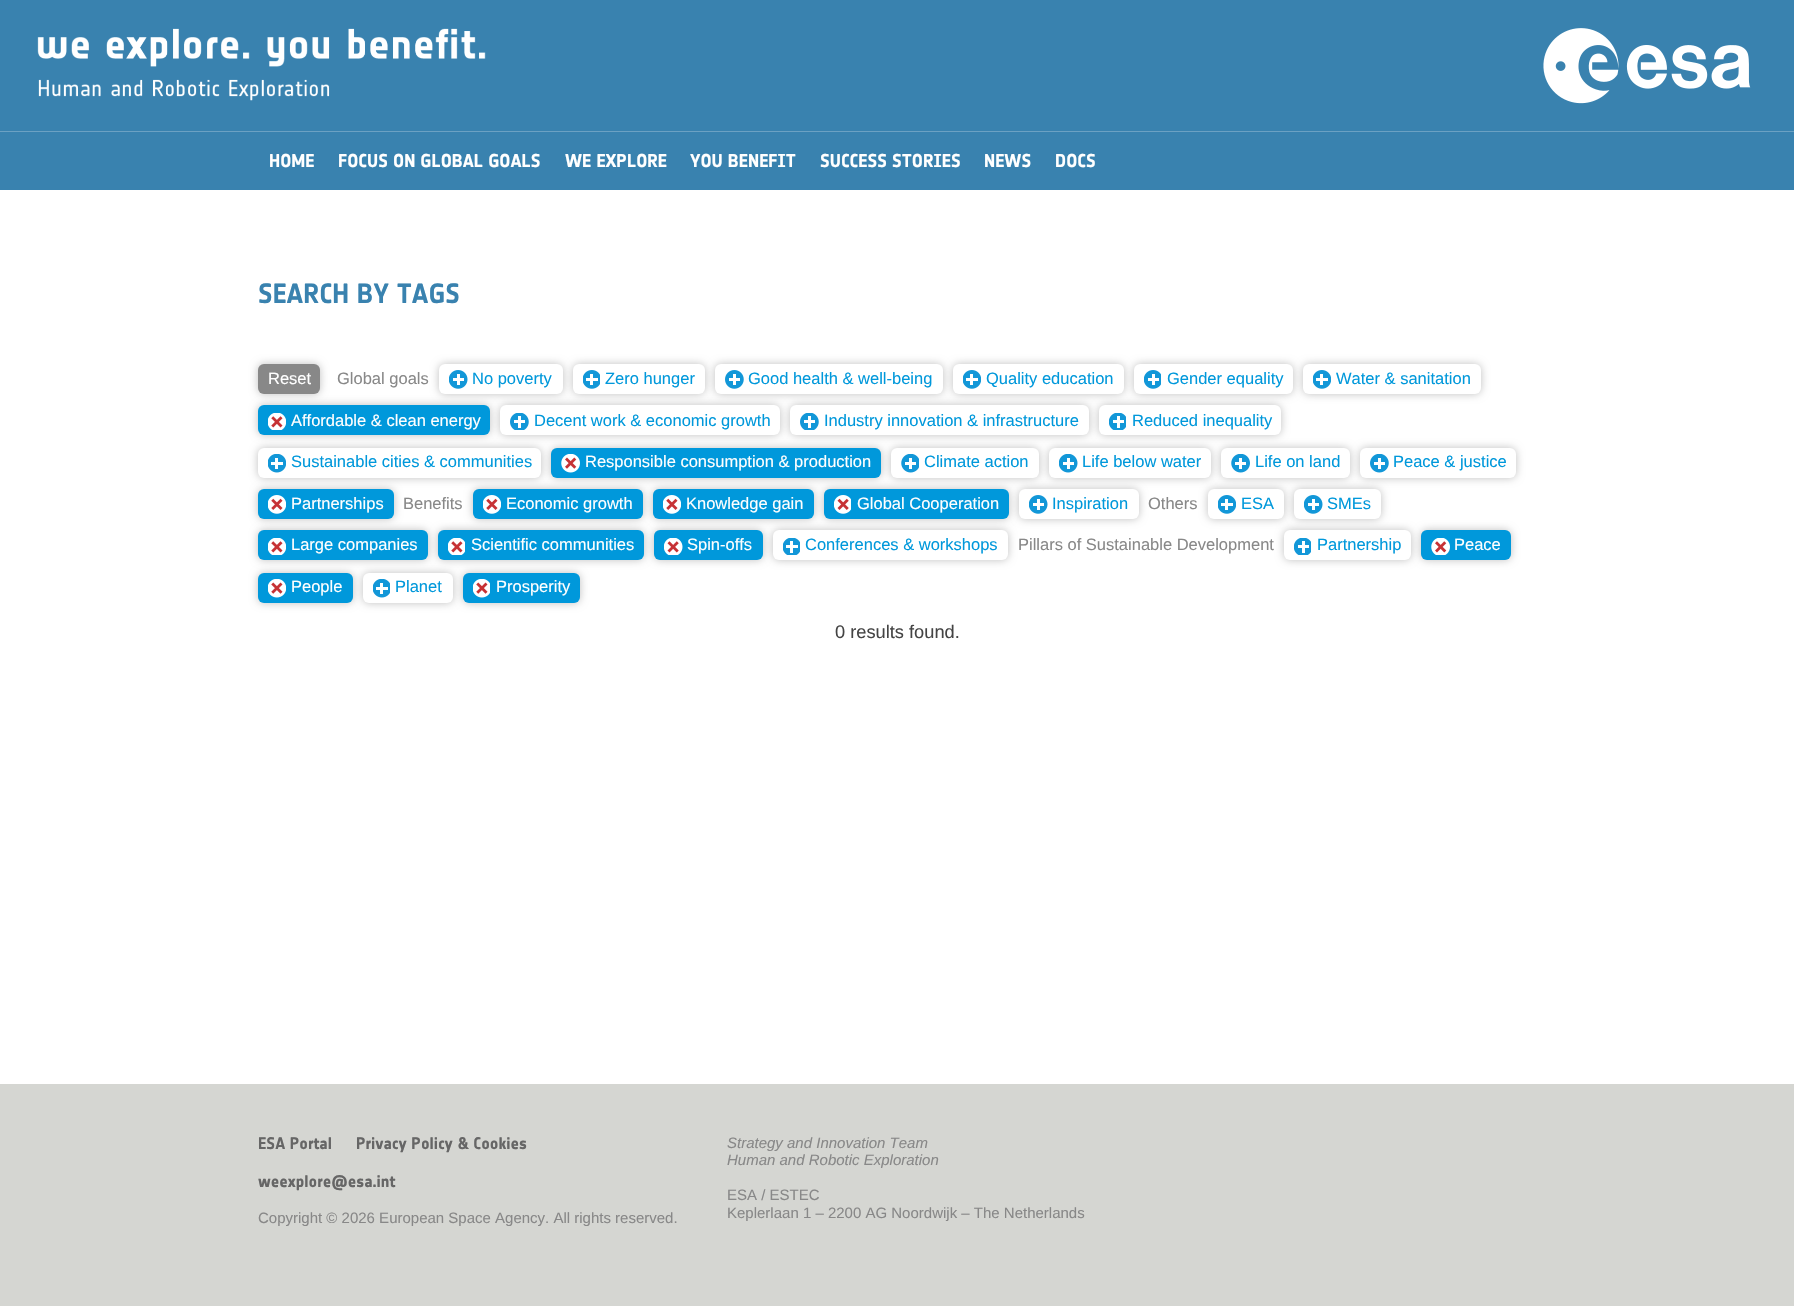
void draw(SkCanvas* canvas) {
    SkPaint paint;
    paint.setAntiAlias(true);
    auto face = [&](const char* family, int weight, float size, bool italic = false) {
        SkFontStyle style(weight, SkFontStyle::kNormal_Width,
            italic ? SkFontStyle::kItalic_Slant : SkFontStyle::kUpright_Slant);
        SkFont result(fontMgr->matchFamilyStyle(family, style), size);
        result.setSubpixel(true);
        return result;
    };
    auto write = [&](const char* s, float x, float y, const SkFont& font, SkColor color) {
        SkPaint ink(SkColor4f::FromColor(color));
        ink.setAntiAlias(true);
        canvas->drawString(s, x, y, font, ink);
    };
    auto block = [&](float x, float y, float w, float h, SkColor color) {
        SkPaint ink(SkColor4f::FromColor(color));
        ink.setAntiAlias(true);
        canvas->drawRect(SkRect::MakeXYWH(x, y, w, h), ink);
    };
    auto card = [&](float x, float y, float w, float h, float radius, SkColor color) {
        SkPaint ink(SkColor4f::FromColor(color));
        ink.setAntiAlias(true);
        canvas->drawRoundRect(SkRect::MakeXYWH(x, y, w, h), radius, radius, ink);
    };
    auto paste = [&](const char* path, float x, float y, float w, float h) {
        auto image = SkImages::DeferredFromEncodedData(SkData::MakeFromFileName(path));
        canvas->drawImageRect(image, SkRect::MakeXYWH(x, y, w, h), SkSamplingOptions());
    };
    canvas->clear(SkColorSetRGB(213, 214, 210));
    block(0, 0, 1794, 131, SkColorSetRGB(57, 130, 175));
    paste("pic1.png", 37, 28, 449, 73);
    paste("pic2.png", 1543, 28, 208, 76);
    block(0, 190, 1794, 894, SK_ColorWHITE);
    block(0, 132, 1794, 58, SkColorSetRGB(57, 130, 175));
    block(0, 131, 1794, 1, SkColorSetRGB(107, 161, 195));
    auto kFont1 = face("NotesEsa", 700, 18.25f);
    write("HOME", 269, 167, kFont1, SK_ColorWHITE);
    write("FOCUS ON GLOBAL GOALS", 338, 167, kFont1, SK_ColorWHITE);
    write("WE EXPLORE", 565, 167, kFont1, SK_ColorWHITE);
    write("YOU BENEFIT", 690, 167, kFont1, SK_ColorWHITE);
    write("SUCCESS STORIES", 820, 167, kFont1, SK_ColorWHITE);
    write("NEWS", 984, 167, kFont1, SK_ColorWHITE);
    write("DOCS", 1055, 167, kFont1, SK_ColorWHITE);
    auto kFont2 = face("NotesEsa", 700, 27.5f);
    write("SEARCH BY TAGS", 258, 303, kFont2, SkColorSetRGB(57, 130, 175));
    paint.setColor(SkColorSetARGB(64, 0, 0, 0));
    paint.setMaskFilter(SkMaskFilter::MakeBlur(kNormal_SkBlurStyle, 4));
    canvas->drawRoundRect(SkRect::MakeXYWH(258, 364, 62, 30), 6, 6, paint);
    paint.setMaskFilter(nullptr);
    card(258, 364, 62, 30, 6, SkColorSetRGB(136, 136, 136));
    auto kFont3 = face("Liberation Sans", 400, 16.5f);
    write("Reset", 268, 384, kFont3, SK_ColorWHITE);
    write("Global goals", 337, 384, kFont3, SkColorSetRGB(136, 136, 136));
    paint.setMaskFilter(SkMaskFilter::MakeBlur(kNormal_SkBlurStyle, 4));
    canvas->drawRoundRect(SkRect::MakeXYWH(439, 364, 124, 30), 6, 6, paint);
    paint.setMaskFilter(nullptr);
    card(439, 364, 124, 30, 6, SK_ColorWHITE);
    paste("pic3.png", 449, 370, 19, 19);
    write("No poverty", 472, 384, kFont3, SkColorSetRGB(0, 152, 219));
    paint.setMaskFilter(SkMaskFilter::MakeBlur(kNormal_SkBlurStyle, 4));
    canvas->drawRoundRect(SkRect::MakeXYWH(573, 364, 132, 30), 6, 6, paint);
    paint.setMaskFilter(nullptr);
    card(573, 364, 132, 30, 6, SK_ColorWHITE);
    paste("pic4.png", 583, 370, 17, 19);
    write("Zero hunger", 605, 384, kFont3, SkColorSetRGB(0, 152, 219));
    paint.setMaskFilter(SkMaskFilter::MakeBlur(kNormal_SkBlurStyle, 4));
    canvas->drawRoundRect(SkRect::MakeXYWH(715, 364, 228, 30), 6, 6, paint);
    paint.setMaskFilter(nullptr);
    card(715, 364, 228, 30, 6, SK_ColorWHITE);
    paste("pic5.png", 725, 370, 19, 19);
    write("Good health & well-being", 748, 384, kFont3, SkColorSetRGB(0, 152, 219));
    paint.setMaskFilter(SkMaskFilter::MakeBlur(kNormal_SkBlurStyle, 4));
    canvas->drawRoundRect(SkRect::MakeXYWH(953, 364, 171, 30), 6, 6, paint);
    paint.setMaskFilter(nullptr);
    card(953, 364, 171, 30, 6, SK_ColorWHITE);
    paste("pic6.png", 963, 370, 18, 19);
    write("Quality education", 986, 384, kFont3, SkColorSetRGB(0, 152, 219));
    paint.setMaskFilter(SkMaskFilter::MakeBlur(kNormal_SkBlurStyle, 4));
    canvas->drawRoundRect(SkRect::MakeXYWH(1134, 364, 159, 30), 6, 6, paint);
    paint.setMaskFilter(nullptr);
    card(1134, 364, 159, 30, 6, SK_ColorWHITE);
    paste("pic7.png", 1144, 370, 17, 19);
    write("Gender equality", 1167, 384, kFont3, SkColorSetRGB(0, 152, 219));
    paint.setMaskFilter(SkMaskFilter::MakeBlur(kNormal_SkBlurStyle, 4));
    canvas->drawRoundRect(SkRect::MakeXYWH(1303, 364, 178, 30), 6, 6, paint);
    paint.setMaskFilter(nullptr);
    card(1303, 364, 178, 30, 6, SK_ColorWHITE);
    paste("pic6.png", 1313, 370, 18, 19);
    write("Water & sanitation", 1336, 384, kFont3, SkColorSetRGB(0, 152, 219));
    paint.setMaskFilter(SkMaskFilter::MakeBlur(kNormal_SkBlurStyle, 4));
    canvas->drawRoundRect(SkRect::MakeXYWH(258, 405, 232, 30), 6, 6, paint);
    paint.setMaskFilter(nullptr);
    card(258, 405, 232, 30, 6, SkColorSetRGB(0, 152, 219));
    paste("pic8.png", 268, 413, 18, 17);
    write("Affordable & clean energy", 291, 426, kFont3, SK_ColorWHITE);
    paint.setMaskFilter(SkMaskFilter::MakeBlur(kNormal_SkBlurStyle, 4));
    canvas->drawRoundRect(SkRect::MakeXYWH(500, 405, 280, 30), 6, 6, paint);
    paint.setMaskFilter(nullptr);
    card(500, 405, 280, 30, 6, SK_ColorWHITE);
    paste("pic9.png", 510, 413, 19, 17);
    write("Decent work & economic growth", 534, 426, kFont3, SkColorSetRGB(0, 152, 219));
    paint.setMaskFilter(SkMaskFilter::MakeBlur(kNormal_SkBlurStyle, 4));
    canvas->drawRoundRect(SkRect::MakeXYWH(790, 405, 299, 30), 6, 6, paint);
    paint.setMaskFilter(nullptr);
    card(790, 405, 299, 30, 6, SK_ColorWHITE);
    paste("pic9.png", 800, 413, 19, 17);
    write("Industry innovation & infrastructure", 824, 426, kFont3, SkColorSetRGB(0, 152, 219));
    paint.setMaskFilter(SkMaskFilter::MakeBlur(kNormal_SkBlurStyle, 4));
    canvas->drawRoundRect(SkRect::MakeXYWH(1099, 405, 182, 30), 6, 6, paint);
    paint.setMaskFilter(nullptr);
    card(1099, 405, 182, 30, 6, SK_ColorWHITE);
    paste("pic10.png", 1109, 413, 17, 17);
    write("Reduced inequality", 1132, 426, kFont3, SkColorSetRGB(0, 152, 219));
    paint.setMaskFilter(SkMaskFilter::MakeBlur(kNormal_SkBlurStyle, 4));
    canvas->drawRoundRect(SkRect::MakeXYWH(258, 448, 283, 30), 6, 6, paint);
    paint.setMaskFilter(nullptr);
    card(258, 448, 283, 30, 6, SK_ColorWHITE);
    paste("pic11.png", 268, 454, 18, 19);
    write("Sustainable cities & communities", 291, 467, kFont3, SkColorSetRGB(0, 152, 219));
    paint.setMaskFilter(SkMaskFilter::MakeBlur(kNormal_SkBlurStyle, 4));
    canvas->drawRoundRect(SkRect::MakeXYWH(551, 448, 330, 30), 6, 6, paint);
    paint.setMaskFilter(nullptr);
    card(551, 448, 330, 30, 6, SkColorSetRGB(0, 152, 219));
    paste("pic12.png", 561, 454, 19, 19);
    write("Responsible consumption & production", 585, 467, kFont3, SK_ColorWHITE);
    paint.setMaskFilter(SkMaskFilter::MakeBlur(kNormal_SkBlurStyle, 4));
    canvas->drawRoundRect(SkRect::MakeXYWH(891, 448, 148, 30), 6, 6, paint);
    paint.setMaskFilter(nullptr);
    card(891, 448, 148, 30, 6, SK_ColorWHITE);
    paste("pic13.png", 901, 454, 18, 19);
    write("Climate action", 924, 467, kFont3, SkColorSetRGB(0, 152, 219));
    paint.setMaskFilter(SkMaskFilter::MakeBlur(kNormal_SkBlurStyle, 4));
    canvas->drawRoundRect(SkRect::MakeXYWH(1049, 448, 162, 30), 6, 6, paint);
    paint.setMaskFilter(nullptr);
    card(1049, 448, 162, 30, 6, SK_ColorWHITE);
    paste("pic14.png", 1059, 454, 19, 19);
    write("Life below water", 1082, 467, kFont3, SkColorSetRGB(0, 152, 219));
    paint.setMaskFilter(SkMaskFilter::MakeBlur(kNormal_SkBlurStyle, 4));
    canvas->drawRoundRect(SkRect::MakeXYWH(1221, 448, 129, 30), 6, 6, paint);
    paint.setMaskFilter(nullptr);
    card(1221, 448, 129, 30, 6, SK_ColorWHITE);
    paste("pic15.png", 1231, 454, 19, 19);
    write("Life on land", 1255, 467, kFont3, SkColorSetRGB(0, 152, 219));
    paint.setMaskFilter(SkMaskFilter::MakeBlur(kNormal_SkBlurStyle, 4));
    canvas->drawRoundRect(SkRect::MakeXYWH(1360, 448, 156, 30), 6, 6, paint);
    paint.setMaskFilter(nullptr);
    card(1360, 448, 156, 30, 6, SK_ColorWHITE);
    paste("pic16.png", 1370, 454, 19, 19);
    write("Peace & justice", 1393, 467, kFont3, SkColorSetRGB(0, 152, 219));
    paint.setMaskFilter(SkMaskFilter::MakeBlur(kNormal_SkBlurStyle, 4));
    canvas->drawRoundRect(SkRect::MakeXYWH(258, 489, 136, 30), 6, 6, paint);
    paint.setMaskFilter(nullptr);
    card(258, 489, 136, 30, 6, SkColorSetRGB(0, 152, 219));
    paste("pic17.png", 268, 495, 18, 19);
    write("Partnerships", 291, 509, kFont3, SK_ColorWHITE);
    write("Benefits", 403, 509, kFont3, SkColorSetRGB(136, 136, 136));
    paint.setMaskFilter(SkMaskFilter::MakeBlur(kNormal_SkBlurStyle, 4));
    canvas->drawRoundRect(SkRect::MakeXYWH(473, 489, 170, 30), 6, 6, paint);
    paint.setMaskFilter(nullptr);
    card(473, 489, 170, 30, 6, SkColorSetRGB(0, 152, 219));
    paste("pic17.png", 483, 495, 18, 19);
    write("Economic growth", 506, 509, kFont3, SK_ColorWHITE);
    paint.setMaskFilter(SkMaskFilter::MakeBlur(kNormal_SkBlurStyle, 4));
    canvas->drawRoundRect(SkRect::MakeXYWH(653, 489, 161, 30), 6, 6, paint);
    paint.setMaskFilter(nullptr);
    card(653, 489, 161, 30, 6, SkColorSetRGB(0, 152, 219));
    paste("pic17.png", 663, 495, 18, 19);
    write("Knowledge gain", 686, 509, kFont3, SK_ColorWHITE);
    paint.setMaskFilter(SkMaskFilter::MakeBlur(kNormal_SkBlurStyle, 4));
    canvas->drawRoundRect(SkRect::MakeXYWH(824, 489, 185, 30), 6, 6, paint);
    paint.setMaskFilter(nullptr);
    card(824, 489, 185, 30, 6, SkColorSetRGB(0, 152, 219));
    paste("pic18.png", 834, 495, 17, 19);
    write("Global Cooperation", 857, 509, kFont3, SK_ColorWHITE);
    paint.setMaskFilter(SkMaskFilter::MakeBlur(kNormal_SkBlurStyle, 4));
    canvas->drawRoundRect(SkRect::MakeXYWH(1019, 489, 120, 30), 6, 6, paint);
    paint.setMaskFilter(nullptr);
    card(1019, 489, 120, 30, 6, SK_ColorWHITE);
    paste("pic3.png", 1029, 495, 19, 19);
    write("Inspiration", 1052, 509, kFont3, SkColorSetRGB(0, 152, 219));
    write("Others", 1148, 509, kFont3, SkColorSetRGB(136, 136, 136));
    paint.setMaskFilter(SkMaskFilter::MakeBlur(kNormal_SkBlurStyle, 4));
    canvas->drawRoundRect(SkRect::MakeXYWH(1208, 489, 76, 30), 6, 6, paint);
    paint.setMaskFilter(nullptr);
    card(1208, 489, 76, 30, 6, SK_ColorWHITE);
    paste("pic6.png", 1218, 495, 18, 19);
    write("ESA", 1241, 509, kFont3, SkColorSetRGB(0, 152, 219));
    paint.setMaskFilter(SkMaskFilter::MakeBlur(kNormal_SkBlurStyle, 4));
    canvas->drawRoundRect(SkRect::MakeXYWH(1294, 489, 87, 30), 6, 6, paint);
    paint.setMaskFilter(nullptr);
    card(1294, 489, 87, 30, 6, SK_ColorWHITE);
    paste("pic3.png", 1304, 495, 19, 19);
    write("SMEs", 1327, 509, kFont3, SkColorSetRGB(0, 152, 219));
    paint.setMaskFilter(SkMaskFilter::MakeBlur(kNormal_SkBlurStyle, 4));
    canvas->drawRoundRect(SkRect::MakeXYWH(258, 530, 170, 30), 6, 6, paint);
    paint.setMaskFilter(nullptr);
    card(258, 530, 170, 30, 6, SkColorSetRGB(0, 152, 219));
    paste("pic8.png", 268, 538, 18, 17);
    write("Large companies", 291, 550, kFont3, SK_ColorWHITE);
    paint.setMaskFilter(SkMaskFilter::MakeBlur(kNormal_SkBlurStyle, 4));
    canvas->drawRoundRect(SkRect::MakeXYWH(438, 530, 206, 30), 6, 6, paint);
    paint.setMaskFilter(nullptr);
    card(438, 530, 206, 30, 6, SkColorSetRGB(0, 152, 219));
    paste("pic19.png", 448, 538, 17, 17);
    write("Scientific communities", 471, 550, kFont3, SK_ColorWHITE);
    paint.setMaskFilter(SkMaskFilter::MakeBlur(kNormal_SkBlurStyle, 4));
    canvas->drawRoundRect(SkRect::MakeXYWH(654, 530, 109, 30), 6, 6, paint);
    paint.setMaskFilter(nullptr);
    card(654, 530, 109, 30, 6, SkColorSetRGB(0, 152, 219));
    paste("pic20.png", 664, 538, 19, 17);
    write("Spin-offs", 687, 550, kFont3, SK_ColorWHITE);
    paint.setMaskFilter(SkMaskFilter::MakeBlur(kNormal_SkBlurStyle, 4));
    canvas->drawRoundRect(SkRect::MakeXYWH(773, 530, 235, 30), 6, 6, paint);
    paint.setMaskFilter(nullptr);
    card(773, 530, 235, 30, 6, SK_ColorWHITE);
    paste("pic21.png", 783, 538, 17, 17);
    write("Conferences & workshops", 805, 550, kFont3, SkColorSetRGB(0, 152, 219));
    write("Pillars of Sustainable Development", 1018, 550, kFont3, SkColorSetRGB(136, 136, 136));
    paint.setMaskFilter(SkMaskFilter::MakeBlur(kNormal_SkBlurStyle, 4));
    canvas->drawRoundRect(SkRect::MakeXYWH(1284, 530, 127, 30), 6, 6, paint);
    paint.setMaskFilter(nullptr);
    card(1284, 530, 127, 30, 6, SK_ColorWHITE);
    paste("pic10.png", 1294, 538, 17, 17);
    write("Partnership", 1317, 550, kFont3, SkColorSetRGB(0, 152, 219));
    paint.setMaskFilter(SkMaskFilter::MakeBlur(kNormal_SkBlurStyle, 4));
    canvas->drawRoundRect(SkRect::MakeXYWH(1421, 530, 90, 30), 6, 6, paint);
    paint.setMaskFilter(nullptr);
    card(1421, 530, 90, 30, 6, SkColorSetRGB(0, 152, 219));
    paste("pic22.png", 1431, 538, 19, 17);
    write("Peace", 1454, 550, kFont3, SK_ColorWHITE);
    paint.setMaskFilter(SkMaskFilter::MakeBlur(kNormal_SkBlurStyle, 4));
    canvas->drawRoundRect(SkRect::MakeXYWH(258, 573, 95, 30), 6, 6, paint);
    paint.setMaskFilter(nullptr);
    card(258, 573, 95, 30, 6, SkColorSetRGB(0, 152, 219));
    paste("pic23.png", 268, 579, 18, 19);
    write("People", 291, 592, kFont3, SK_ColorWHITE);
    paint.setMaskFilter(SkMaskFilter::MakeBlur(kNormal_SkBlurStyle, 4));
    canvas->drawRoundRect(SkRect::MakeXYWH(363, 573, 90, 30), 6, 6, paint);
    paint.setMaskFilter(nullptr);
    card(363, 573, 90, 30, 6, SK_ColorWHITE);
    paste("pic24.png", 373, 579, 17, 19);
    write("Planet", 395, 592, kFont3, SkColorSetRGB(0, 152, 219));
    paint.setMaskFilter(SkMaskFilter::MakeBlur(kNormal_SkBlurStyle, 4));
    canvas->drawRoundRect(SkRect::MakeXYWH(463, 573, 117, 30), 6, 6, paint);
    paint.setMaskFilter(nullptr);
    card(463, 573, 117, 30, 6, SkColorSetRGB(0, 152, 219));
    paste("pic25.png", 473, 579, 17, 19);
    write("Prosperity", 496, 592, kFont3, SK_ColorWHITE);
    auto kFont4 = face("Liberation Sans", 400, 18.25f);
    write("0 results found.", 835, 638, kFont4, SkColorSetRGB(68, 68, 68));
    auto kFont5 = face("NotesEsa", 700, 16.5f);
    write("ESA Portal", 258, 1149, kFont5, SkColorSetRGB(102, 102, 102));
    write("Privacy Policy & Cookies", 356, 1149, kFont5, SkColorSetRGB(102, 102, 102));
    write("weexplore@esa.int", 258, 1187, kFont5, SkColorSetRGB(102, 102, 102));
    auto kFont6 = face("Liberation Sans", 400, 15);
    write("Copyright © 2026 European Space Agency. All rights reserved.", 258, 1223, kFont6, SkColorSetRGB(136, 136, 136));
    auto kFont7 = face("Liberation Sans", 400, 15, true);
    write("Strategy and Innovation Team", 727, 1148, kFont7, SkColorSetRGB(136, 136, 136));
    write("Human and Robotic Exploration", 727, 1165, kFont7, SkColorSetRGB(136, 136, 136));
    write("ESA / ESTEC", 727, 1200, kFont6, SkColorSetRGB(136, 136, 136));
    write("Keplerlaan 1 – 2200 AG Noordwijk – The Netherlands", 727, 1218, kFont6, SkColorSetRGB(136, 136, 136));
}
